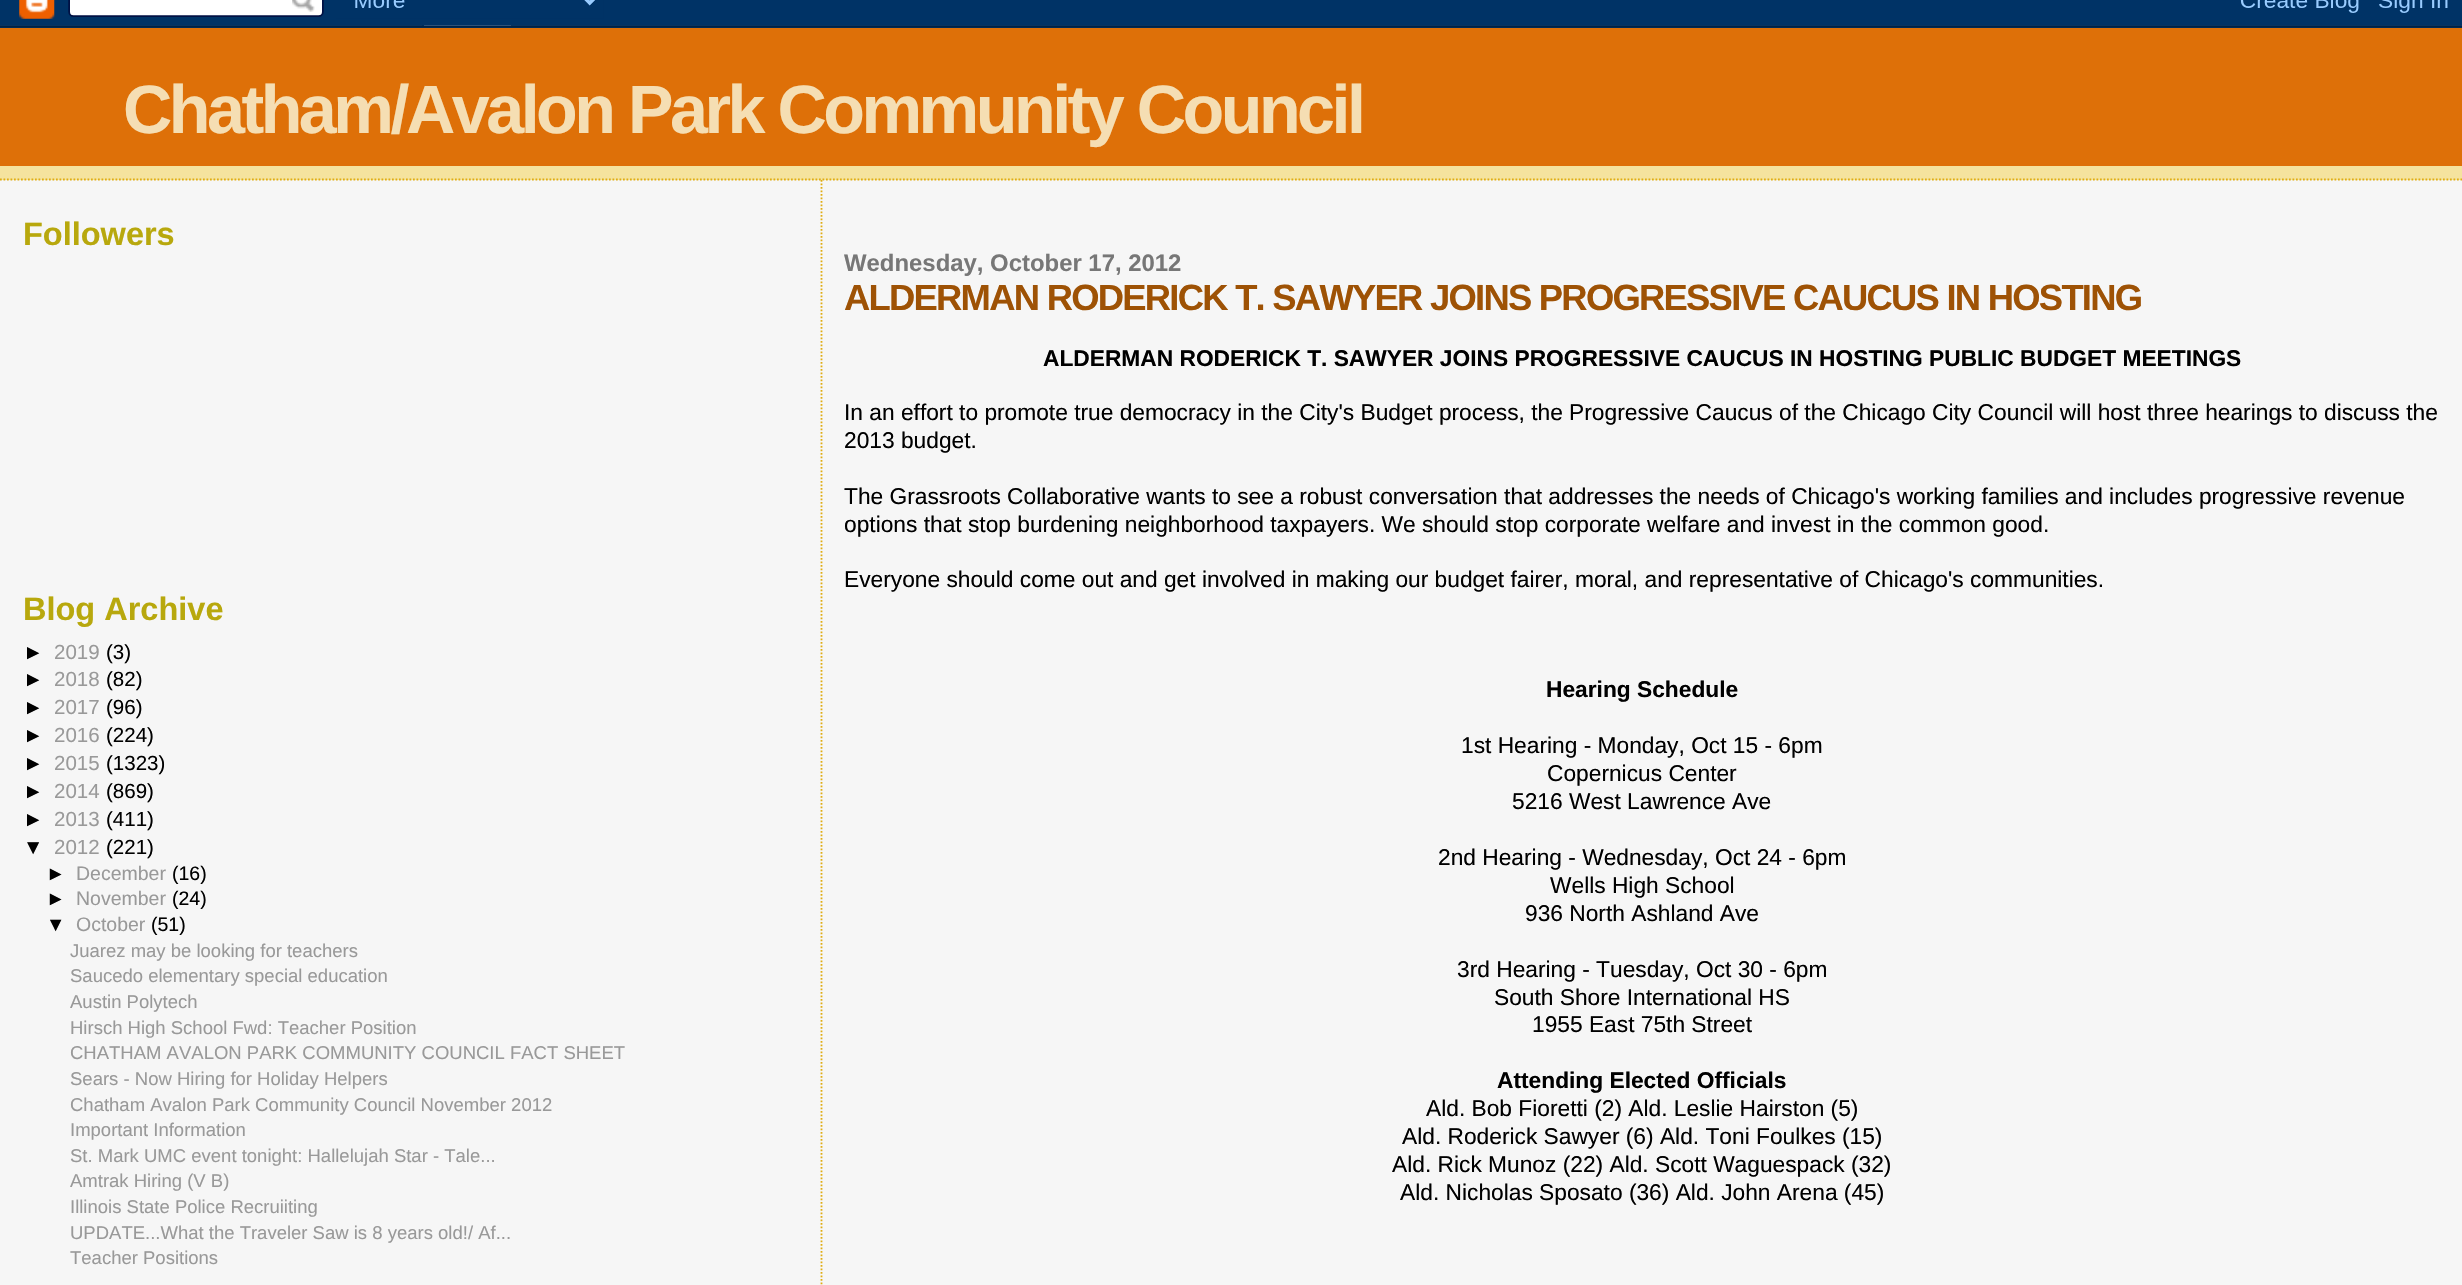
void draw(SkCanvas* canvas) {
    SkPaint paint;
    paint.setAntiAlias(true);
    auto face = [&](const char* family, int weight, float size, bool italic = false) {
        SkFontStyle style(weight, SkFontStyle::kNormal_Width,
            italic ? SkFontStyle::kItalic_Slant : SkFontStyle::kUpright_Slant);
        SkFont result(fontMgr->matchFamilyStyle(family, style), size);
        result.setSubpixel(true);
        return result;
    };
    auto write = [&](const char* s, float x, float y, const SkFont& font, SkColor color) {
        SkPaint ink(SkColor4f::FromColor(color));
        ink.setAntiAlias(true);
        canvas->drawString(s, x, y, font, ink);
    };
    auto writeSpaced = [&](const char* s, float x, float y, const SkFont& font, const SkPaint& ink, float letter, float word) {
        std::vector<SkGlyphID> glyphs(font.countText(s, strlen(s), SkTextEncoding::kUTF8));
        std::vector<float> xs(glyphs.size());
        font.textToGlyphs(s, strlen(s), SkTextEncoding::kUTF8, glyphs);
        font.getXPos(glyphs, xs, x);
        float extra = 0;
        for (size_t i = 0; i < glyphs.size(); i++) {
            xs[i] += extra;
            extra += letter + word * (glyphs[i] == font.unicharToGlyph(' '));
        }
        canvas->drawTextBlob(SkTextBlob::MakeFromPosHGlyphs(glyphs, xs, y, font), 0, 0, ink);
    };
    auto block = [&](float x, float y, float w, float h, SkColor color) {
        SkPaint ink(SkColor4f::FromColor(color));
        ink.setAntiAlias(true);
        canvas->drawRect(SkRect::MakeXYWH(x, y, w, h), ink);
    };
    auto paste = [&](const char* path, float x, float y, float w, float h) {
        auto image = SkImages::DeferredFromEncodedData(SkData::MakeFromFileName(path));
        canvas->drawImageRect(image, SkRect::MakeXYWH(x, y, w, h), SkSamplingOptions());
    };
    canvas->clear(SkColorSetRGB(246, 246, 246));
    paste("pic1.png", 0, 0, 2462, 28);
    block(0, 166, 2462, 14, SkColorSetRGB(245, 227, 158));
    paint.setStyle(SkPaint::kStroke_Style);
    paint.setStrokeWidth(1.8f);
    paint.setColor(SkColorSetRGB(224, 173, 18));
    paint.setPathEffect(SkDashPathEffect::Make({{1.75f, 1.75f}}, 0));
    canvas->drawPath(SkPathBuilder().moveTo(0, 179.5f).lineTo(2462, 179.5f).detach(), paint);
    paint.setPathEffect(nullptr);
    block(0, 28, 2462, 138, SkColorSetRGB(222, 112, 8));
    auto kFont1 = face("Liberation Sans", 700, 68.25f);
    paint.setStyle(SkPaint::kFill_Style);
    paint.setColor(SkColorSetRGB(245, 222, 179));
    writeSpaced("Chatham/Avalon Park Community Council", 123, 133, kFont1, paint, -3.5f, 0);
    auto kFont2 = face("Liberation Sans", 700, 32.5f);
    write("Followers", 23, 245, kFont2, SkColorSetRGB(184, 168, 13));
    write("Blog Archive", 23, 620, kFont2, SkColorSetRGB(184, 168, 13));
    auto kFont3 = face("Liberation Sans", 400, 20.5f);
    write("►", 23, 659, kFont3, SK_ColorBLACK);
    write("2019", 54, 659, kFont3, SkColorSetRGB(153, 153, 153));
    write("(3)", 106, 659, kFont3, SK_ColorBLACK);
    write("►", 23, 686, kFont3, SK_ColorBLACK);
    write("2018", 54, 686, kFont3, SkColorSetRGB(153, 153, 153));
    write("(82)", 106, 686, kFont3, SK_ColorBLACK);
    write("►", 23, 714, kFont3, SK_ColorBLACK);
    write("2017", 54, 714, kFont3, SkColorSetRGB(153, 153, 153));
    write("(96)", 106, 714, kFont3, SK_ColorBLACK);
    write("►", 23, 742, kFont3, SK_ColorBLACK);
    write("2016", 54, 742, kFont3, SkColorSetRGB(153, 153, 153));
    write("(224)", 106, 742, kFont3, SK_ColorBLACK);
    write("►", 23, 770, kFont3, SK_ColorBLACK);
    write("2015", 54, 770, kFont3, SkColorSetRGB(153, 153, 153));
    write("(1323)", 106, 770, kFont3, SK_ColorBLACK);
    write("►", 23, 798, kFont3, SK_ColorBLACK);
    write("2014", 54, 798, kFont3, SkColorSetRGB(153, 153, 153));
    write("(869)", 106, 798, kFont3, SK_ColorBLACK);
    write("►", 23, 826, kFont3, SK_ColorBLACK);
    write("2013", 54, 826, kFont3, SkColorSetRGB(153, 153, 153));
    write("(411)", 106, 826, kFont3, SK_ColorBLACK);
    write("▼", 23, 854, kFont3, SK_ColorBLACK);
    write("2012", 54, 854, kFont3, SkColorSetRGB(153, 153, 153));
    write("(221)", 106, 854, kFont3, SK_ColorBLACK);
    auto kFont4 = face("Liberation Sans", 400, 19.5f);
    write("►", 46, 880, kFont4, SK_ColorBLACK);
    write("December", 76, 880, kFont4, SkColorSetRGB(153, 153, 153));
    write("(16)", 172, 880, kFont4, SK_ColorBLACK);
    write("►", 46, 905, kFont4, SK_ColorBLACK);
    write("November", 76, 905, kFont4, SkColorSetRGB(153, 153, 153));
    write("(24)", 172, 905, kFont4, SK_ColorBLACK);
    write("▼", 46, 931, kFont4, SK_ColorBLACK);
    write("October", 76, 931, kFont4, SkColorSetRGB(153, 153, 153));
    write("(51)", 151, 931, kFont4, SK_ColorBLACK);
    auto kFont5 = face("Liberation Sans", 400, 18.5f);
    write("Juarez may be looking for teachers", 70, 957, kFont5, SkColorSetRGB(153, 153, 153));
    write("Saucedo elementary special education", 70, 982, kFont5, SkColorSetRGB(153, 153, 153));
    write("Austin Polytech", 70, 1008, kFont5, SkColorSetRGB(153, 153, 153));
    write("Hirsch High School Fwd: Teacher Position", 70, 1034, kFont5, SkColorSetRGB(153, 153, 153));
    write("CHATHAM AVALON PARK COMMUNITY COUNCIL FACT SHEET", 70, 1059, kFont5, SkColorSetRGB(153, 153, 153));
    write("Sears - Now Hiring for Holiday Helpers", 70, 1085, kFont5, SkColorSetRGB(153, 153, 153));
    write("Chatham Avalon Park Community Council November 2012", 70, 1111, kFont5, SkColorSetRGB(153, 153, 153));
    write("Important Information", 70, 1136, kFont5, SkColorSetRGB(153, 153, 153));
    write("St. Mark UMC event tonight: Hallelujah Star - Tale...", 70, 1162, kFont5, SkColorSetRGB(153, 153, 153));
    write("Amtrak Hiring (V B)", 70, 1187, kFont5, SkColorSetRGB(153, 153, 153));
    write("Illinois State Police Recruiiting", 70, 1213, kFont5, SkColorSetRGB(153, 153, 153));
    write("UPDATE...What the Traveler Saw is 8 years old!/ Af...", 70, 1239, kFont5, SkColorSetRGB(153, 153, 153));
    write("Teacher Positions", 70, 1264, kFont5, SkColorSetRGB(153, 153, 153));
    paint.setStyle(SkPaint::kStroke_Style);
    paint.setColor(SkColorSetRGB(224, 173, 18));
    paint.setPathEffect(SkDashPathEffect::Make({{1.75f, 1.75f}}, 0));
    canvas->drawPath(SkPathBuilder().moveTo(821.5f, 180).lineTo(821.5f, 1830.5f).detach(), paint);
    paint.setPathEffect(nullptr);
    auto kFont6 = face("Liberation Sans", 700, 23.9f);
    write("Wednesday, October 17, 2012", 844, 271, kFont6, SkColorSetRGB(119, 119, 119));
    auto kFont7 = face("Liberation Sans", 700, 36.4f);
    paint.setStyle(SkPaint::kFill_Style);
    paint.setColor(SkColorSetRGB(158, 82, 5));
    writeSpaced("ALDERMAN RODERICK T. SAWYER JOINS PROGRESSIVE CAUCUS IN HOSTING", 844, 310, kFont7, paint, -1.75f, 0);
    auto kFont8 = face("Liberation Sans", 700, 22.75f);
    write("ALDERMAN RODERICK T. SAWYER JOINS PROGRESSIVE CAUCUS IN HOSTING PUBLIC BUDGET MEETINGS", 1043, 366, kFont8, SK_ColorBLACK);
    auto kFont9 = face("Liberation Sans", 400, 22.75f);
    write("In an effort to promote true democracy in the City's Budget process, the Progressive Caucus of the Chicago City Council will host three hearings to discuss the", 844, 420, kFont9, SK_ColorBLACK);
    write("2013 budget.", 844, 448, kFont9, SK_ColorBLACK);
    write("The Grassroots Collaborative wants to see a robust conversation that addresses the needs of Chicago's working families and includes progressive revenue", 844, 504, kFont9, SK_ColorBLACK);
    write("options that stop burdening neighborhood taxpayers. We should stop corporate welfare and invest in the common good.", 844, 532, kFont9, SK_ColorBLACK);
    write("Everyone should come out and get involved in making our budget fairer, moral, and representative of Chicago's communities.", 844, 587, kFont9, SK_ColorBLACK);
    write("Hearing Schedule", 1546, 697, kFont8, SK_ColorBLACK);
    write("1st Hearing - Monday, Oct 15 - 6pm", 1461, 753, kFont9, SK_ColorBLACK);
    write("Copernicus Center", 1547, 781, kFont9, SK_ColorBLACK);
    write("5216 West Lawrence Ave", 1512, 809, kFont9, SK_ColorBLACK);
    write("2nd Hearing - Wednesday, Oct 24 - 6pm", 1438, 865, kFont9, SK_ColorBLACK);
    write("Wells High School", 1550, 893, kFont9, SK_ColorBLACK);
    write("936 North Ashland Ave", 1525, 921, kFont9, SK_ColorBLACK);
    write("3rd Hearing - Tuesday, Oct 30 - 6pm", 1457, 977, kFont9, SK_ColorBLACK);
    write("South Shore International HS", 1494, 1005, kFont9, SK_ColorBLACK);
    write("1955 East 75th Street", 1532, 1032, kFont9, SK_ColorBLACK);
    write("Attending Elected Officials", 1497, 1088, kFont8, SK_ColorBLACK);
    write("Ald. Bob Fioretti (2) Ald. Leslie Hairston (5)", 1426, 1116, kFont9, SK_ColorBLACK);
    write("Ald. Roderick Sawyer (6) Ald. Toni Foulkes (15)", 1402, 1144, kFont9, SK_ColorBLACK);
    write("Ald. Rick Munoz (22) Ald. Scott Waguespack (32)", 1392, 1172, kFont9, SK_ColorBLACK);
    write("Ald. Nicholas Sposato (36) Ald. John Arena (45)", 1400, 1200, kFont9, SK_ColorBLACK);
}
